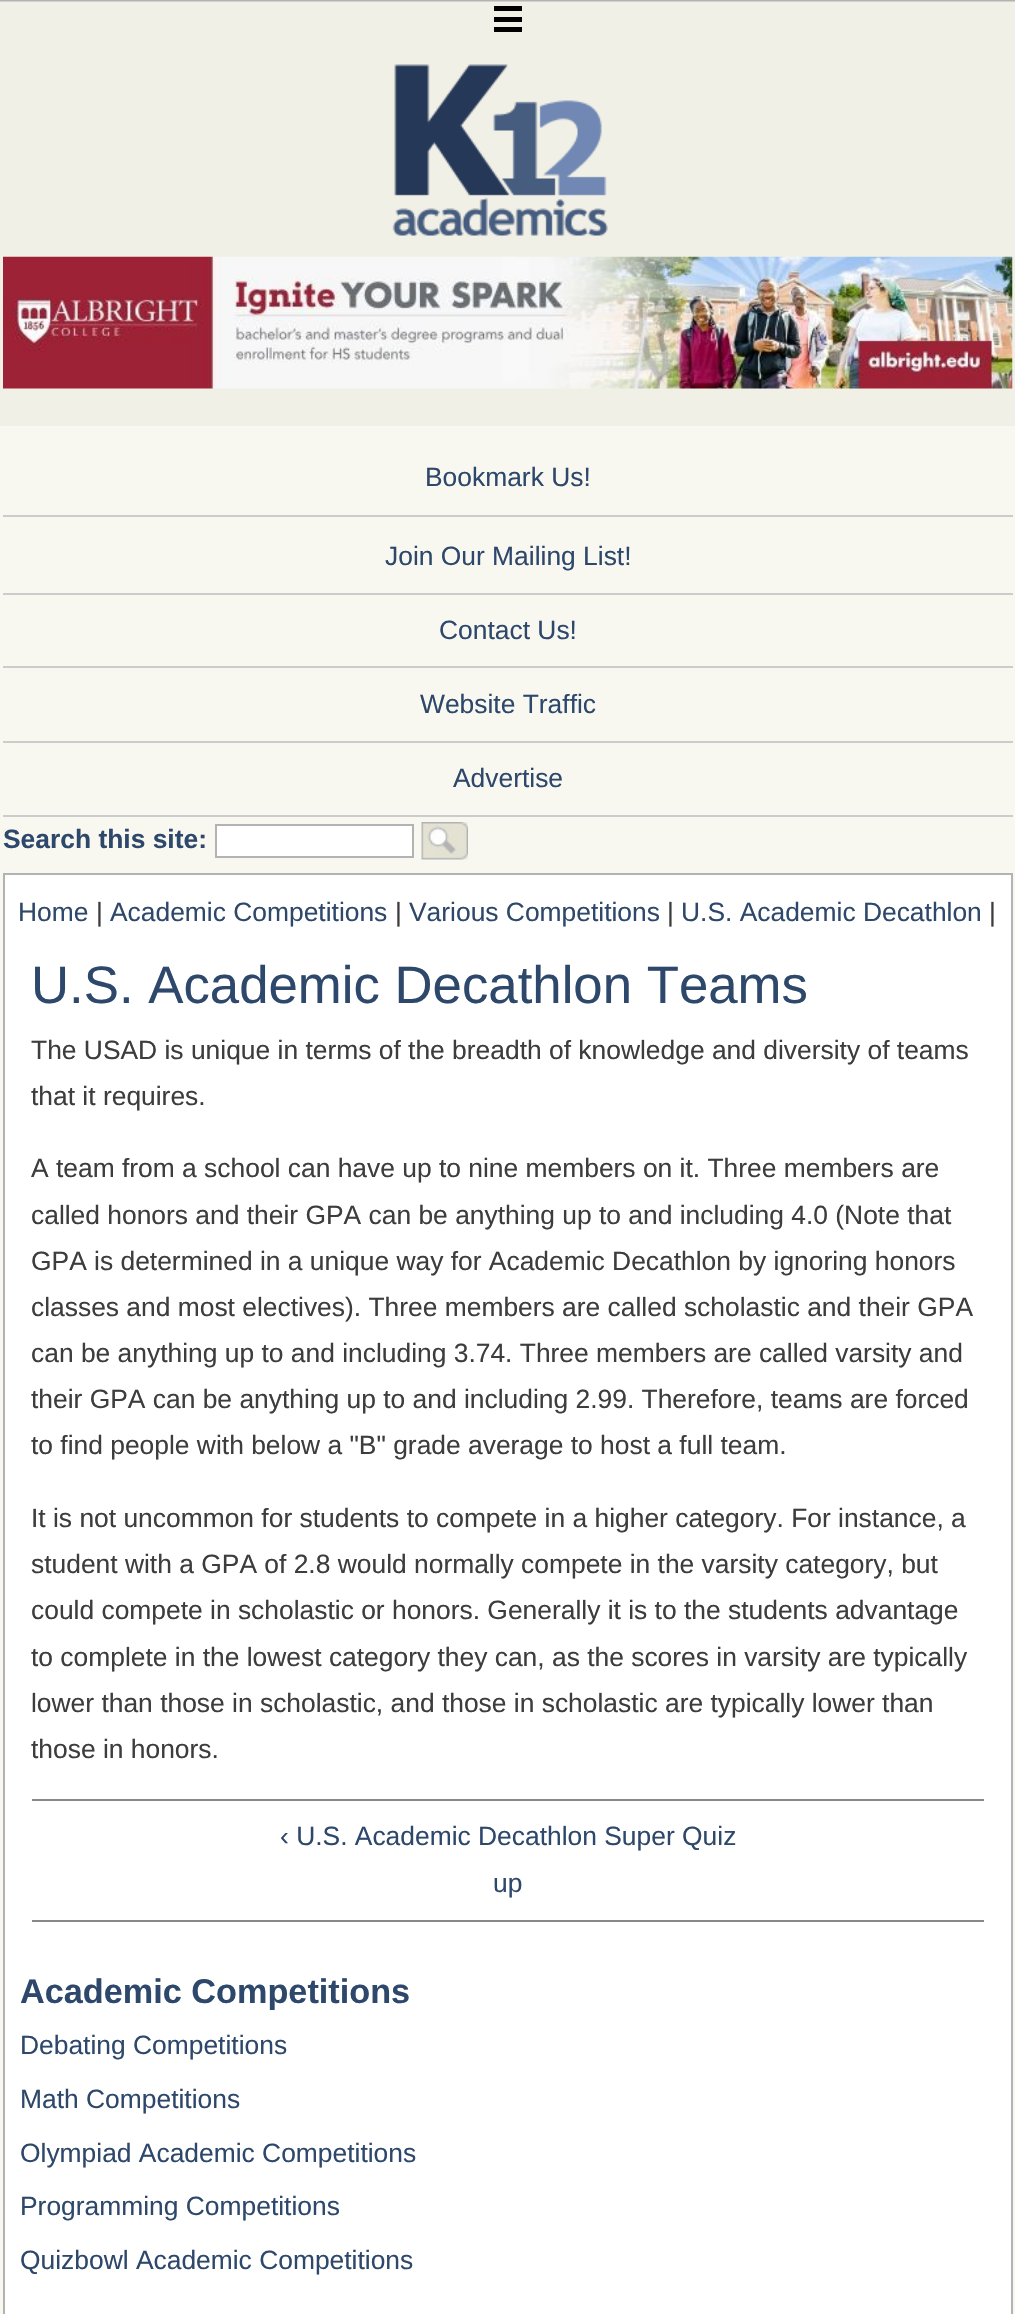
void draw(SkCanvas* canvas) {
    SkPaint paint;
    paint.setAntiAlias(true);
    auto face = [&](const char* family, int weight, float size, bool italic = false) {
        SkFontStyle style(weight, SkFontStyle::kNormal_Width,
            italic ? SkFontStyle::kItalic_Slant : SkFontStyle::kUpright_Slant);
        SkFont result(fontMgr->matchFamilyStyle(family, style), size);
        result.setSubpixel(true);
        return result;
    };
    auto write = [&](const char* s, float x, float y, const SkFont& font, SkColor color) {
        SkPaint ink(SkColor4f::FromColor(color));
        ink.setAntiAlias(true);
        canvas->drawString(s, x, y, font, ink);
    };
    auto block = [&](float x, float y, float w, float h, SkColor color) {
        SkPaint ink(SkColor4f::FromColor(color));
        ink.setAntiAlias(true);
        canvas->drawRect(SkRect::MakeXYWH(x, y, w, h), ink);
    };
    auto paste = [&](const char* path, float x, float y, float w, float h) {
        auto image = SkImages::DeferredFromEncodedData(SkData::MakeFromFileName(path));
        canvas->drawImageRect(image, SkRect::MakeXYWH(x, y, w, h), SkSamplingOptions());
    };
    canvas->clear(SkColorSetRGB(248, 248, 241));
    paste("pic1.png", 0, 0, 1015, 426);
    block(494, 6, 28, 5, SK_ColorBLACK);
    block(494, 17, 28, 5, SK_ColorBLACK);
    block(494, 27, 28, 5, SK_ColorBLACK);
    paste("pic2.png", 392, 64, 216, 172);
    paste("pic3.png", 3, 256, 1010, 133);
    block(3, 515, 1010, 2, SkColorSetRGB(204, 204, 204));
    auto kFont1 = face("Liberation Sans", 400, 26.4f);
    write("Bookmark Us!", 425, 486, kFont1, SkColorSetRGB(46, 72, 107));
    block(3, 593, 1010, 2, SkColorSetRGB(204, 204, 204));
    write("Join Our Mailing List!", 385, 565, kFont1, SkColorSetRGB(46, 72, 107));
    block(3, 666, 1010, 2, SkColorSetRGB(204, 204, 204));
    write("Contact Us!", 439, 639, kFont1, SkColorSetRGB(46, 72, 107));
    block(3, 741, 1010, 2, SkColorSetRGB(204, 204, 204));
    write("Website Traffic", 420, 713, kFont1, SkColorSetRGB(46, 72, 107));
    block(3, 815, 1010, 2, SkColorSetRGB(204, 204, 204));
    write("Advertise", 453, 787, kFont1, SkColorSetRGB(46, 72, 107));
    auto kFont2 = face("Liberation Sans", 700, 26.4f);
    write("Search this site:", 3, 848, kFont2, SkColorSetRGB(46, 72, 107));
    paint.setColor(SK_ColorWHITE);
    canvas->drawRect(SkRect::MakeXYWH(216, 825, 197, 32), paint);
    paint.setStyle(SkPaint::kStroke_Style);
    paint.setStrokeWidth(2);
    paint.setColor(SkColorSetRGB(179, 179, 179));
    canvas->drawRect(SkRect::MakeXYWH(216, 825, 197, 32), paint);
    paste("pic4.png", 421, 822, 47, 38);
    paint.setStyle(SkPaint::kFill_Style);
    paint.setColor(SK_ColorWHITE);
    canvas->drawRect(SkRect::MakeXYWH(4, 874, 1008, 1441), paint);
    paint.setStyle(SkPaint::kStroke_Style);
    paint.setColor(SkColorSetRGB(179, 179, 179));
    canvas->drawRect(SkRect::MakeXYWH(4, 874, 1008, 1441), paint);
    write("Home", 18, 921, kFont1, SkColorSetRGB(46, 72, 107));
    write("|", 96, 921, kFont1, SkColorSetRGB(61, 61, 61));
    write("Academic Competitions", 110, 921, kFont1, SkColorSetRGB(46, 72, 107));
    write("|", 395, 921, kFont1, SkColorSetRGB(61, 61, 61));
    write("Various Competitions", 409, 921, kFont1, SkColorSetRGB(46, 72, 107));
    write("|", 667, 921, kFont1, SkColorSetRGB(61, 61, 61));
    write("U.S. Academic Decathlon", 681, 921, kFont1, SkColorSetRGB(46, 72, 107));
    write("|", 989, 921, kFont1, SkColorSetRGB(61, 61, 61));
    auto kFont3 = face("Liberation Sans", 400, 52.75f);
    write("U.S. Academic Decathlon Teams", 31, 1003, kFont3, SkColorSetRGB(46, 72, 107));
    write("The USAD is unique in terms of the breadth of knowledge and diversity of teams", 31, 1059, kFont1, SkColorSetRGB(61, 61, 61));
    write("that it requires.", 31, 1105, kFont1, SkColorSetRGB(61, 61, 61));
    write("A team from a school can have up to nine members on it. Three members are", 31, 1177, kFont1, SkColorSetRGB(61, 61, 61));
    write("called honors and their GPA can be anything up to and including 4.0 (Note that", 31, 1224, kFont1, SkColorSetRGB(61, 61, 61));
    write("GPA is determined in a unique way for Academic Decathlon by ignoring honors", 31, 1270, kFont1, SkColorSetRGB(61, 61, 61));
    write("classes and most electives). Three members are called scholastic and their GPA", 31, 1316, kFont1, SkColorSetRGB(61, 61, 61));
    write("can be anything up to and including 3.74. Three members are called varsity and", 31, 1362, kFont1, SkColorSetRGB(61, 61, 61));
    write("their GPA can be anything up to and including 2.99. Therefore, teams are forced", 31, 1408, kFont1, SkColorSetRGB(61, 61, 61));
    write("to find people with below a \"B\" grade average to host a full team.", 31, 1454, kFont1, SkColorSetRGB(61, 61, 61));
    write("It is not uncommon for students to compete in a higher category. For instance, a", 31, 1527, kFont1, SkColorSetRGB(61, 61, 61));
    write("student with a GPA of 2.8 would normally compete in the varsity category, but", 31, 1573, kFont1, SkColorSetRGB(61, 61, 61));
    write("could compete in scholastic or honors. Generally it is to the students advantage", 31, 1619, kFont1, SkColorSetRGB(61, 61, 61));
    write("to complete in the lowest category they can, as the scores in varsity are typically", 31, 1666, kFont1, SkColorSetRGB(61, 61, 61));
    write("lower than those in scholastic, and those in scholastic are typically lower than", 31, 1712, kFont1, SkColorSetRGB(61, 61, 61));
    write("those in honors.", 31, 1758, kFont1, SkColorSetRGB(61, 61, 61));
    block(32, 1799, 952, 2, SkColorSetRGB(136, 136, 136));
    block(32, 1920, 952, 2, SkColorSetRGB(136, 136, 136));
    write("‹ U.S. Academic Decathlon Super Quiz", 280, 1845, kFont1, SkColorSetRGB(46, 72, 107));
    write("up", 493, 1892, kFont1, SkColorSetRGB(46, 72, 107));
    auto kFont4 = face("Liberation Sans", 700, 34.25f);
    write("Academic Competitions", 20, 2003, kFont4, SkColorSetRGB(46, 72, 107));
    write("Debating Competitions", 20, 2054, kFont1, SkColorSetRGB(46, 72, 107));
    write("Math Competitions", 20, 2108, kFont1, SkColorSetRGB(46, 72, 107));
    write("Olympiad Academic Competitions", 20, 2162, kFont1, SkColorSetRGB(46, 72, 107));
    write("Programming Competitions", 20, 2215, kFont1, SkColorSetRGB(46, 72, 107));
    write("Quizbowl Academic Competitions", 20, 2269, kFont1, SkColorSetRGB(46, 72, 107));
}
